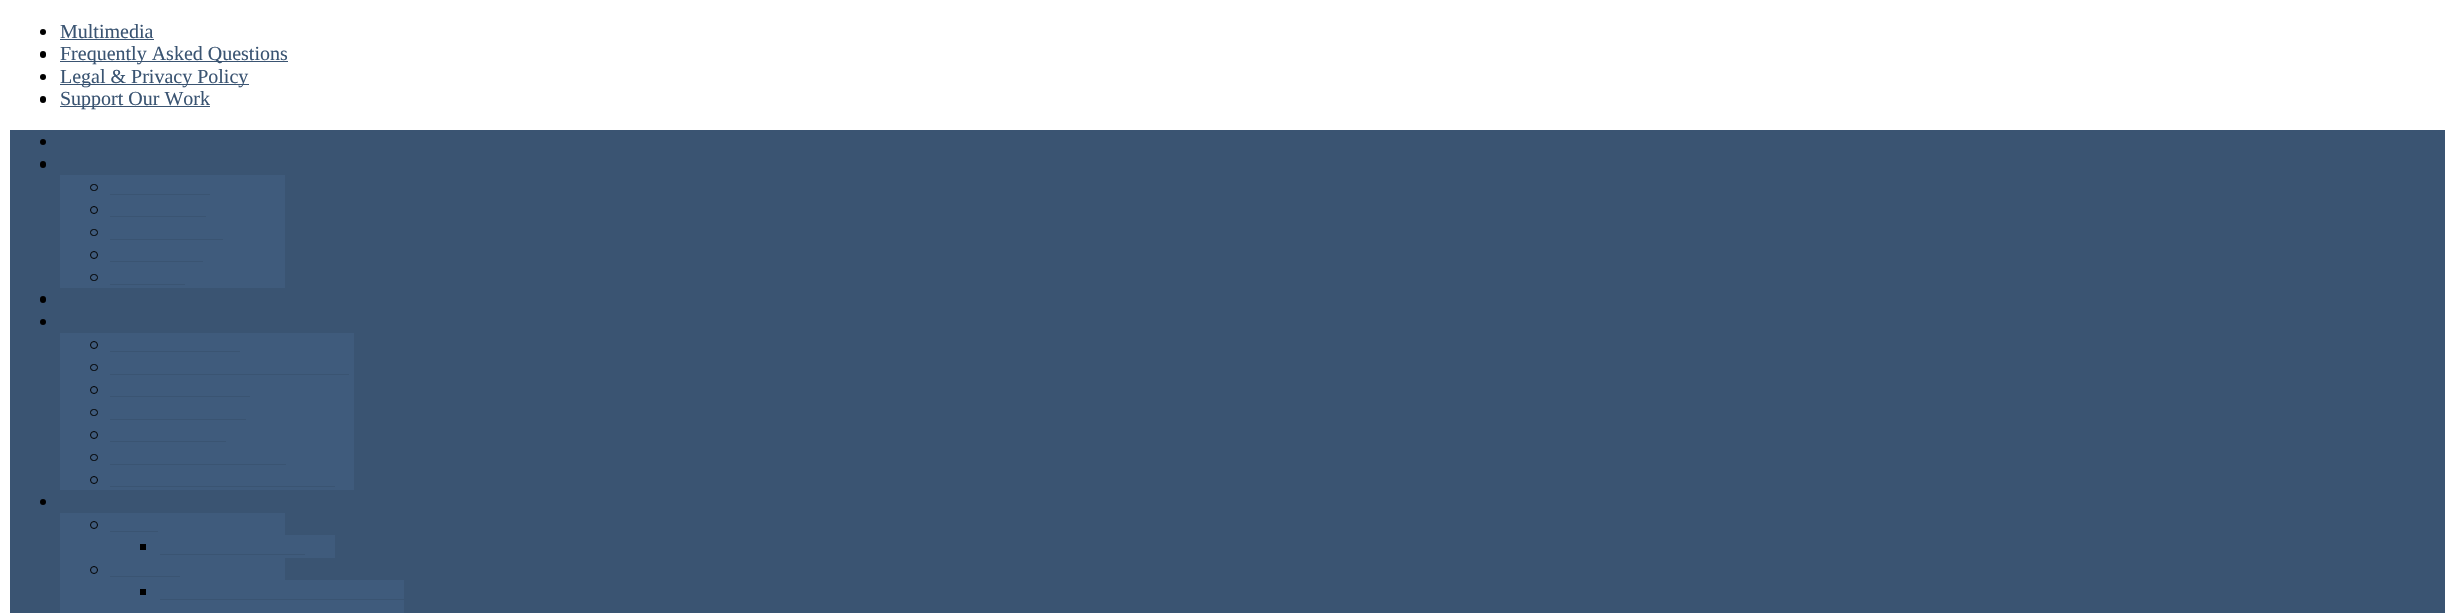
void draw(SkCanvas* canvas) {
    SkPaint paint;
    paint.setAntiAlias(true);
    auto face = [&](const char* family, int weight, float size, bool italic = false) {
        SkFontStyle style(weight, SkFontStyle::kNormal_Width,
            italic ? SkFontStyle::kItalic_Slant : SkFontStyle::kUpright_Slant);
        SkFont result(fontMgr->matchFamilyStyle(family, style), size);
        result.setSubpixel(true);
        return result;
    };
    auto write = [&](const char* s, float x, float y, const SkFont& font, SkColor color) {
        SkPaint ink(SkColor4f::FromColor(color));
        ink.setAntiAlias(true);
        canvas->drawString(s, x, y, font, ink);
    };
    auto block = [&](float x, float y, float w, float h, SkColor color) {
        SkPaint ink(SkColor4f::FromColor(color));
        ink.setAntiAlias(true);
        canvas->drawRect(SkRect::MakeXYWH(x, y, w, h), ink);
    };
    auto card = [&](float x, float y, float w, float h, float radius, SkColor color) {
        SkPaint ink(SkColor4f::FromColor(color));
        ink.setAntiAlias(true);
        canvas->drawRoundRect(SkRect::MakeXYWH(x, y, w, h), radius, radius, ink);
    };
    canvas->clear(SK_ColorWHITE);
    paint.setColor(SK_ColorBLACK);
    canvas->drawCircle(43, 32, 3, paint);
    auto kFont1 = face("Liberation Serif", 400, 20);
    write("Multimedia", 60, 38, kFont1, SkColorSetRGB(58, 84, 114));
    block(60, 39, 94, 1, SkColorSetRGB(58, 84, 114));
    card(40, 51, 6, 7, 3, SK_ColorBLACK);
    block(60, 61, 228, 1, SkColorSetRGB(58, 84, 114));
    write("Frequently Asked Questions", 60, 60, kFont1, SkColorSetRGB(58, 84, 114));
    canvas->drawCircle(43, 77, 3, paint);
    block(60, 84, 189, 1, SkColorSetRGB(58, 84, 114));
    write("Legal & Privacy Policy", 60, 83, kFont1, SkColorSetRGB(58, 84, 114));
    card(40, 96, 6, 7, 3, SK_ColorBLACK);
    block(60, 106, 150, 1, SkColorSetRGB(58, 84, 114));
    write("Support Our Work", 60, 105, kFont1, SkColorSetRGB(58, 84, 114));
    block(10, 130, 2435, 483, SkColorSetRGB(58, 84, 114));
    canvas->drawCircle(43, 142, 3, paint);
    card(40, 161, 6, 7, 3, SK_ColorBLACK);
    block(60, 175, 225, 113, SkColorSetRGB(63, 91, 124));
    paint.setStyle(SkPaint::kStroke_Style);
    paint.setStrokeWidth(1);
    canvas->drawRoundRect(SkRect::MakeXYWH(90.5f, 184.5f, 7, 6), 3, 3, paint);
    block(110, 194, 100, 1, SkColorSetRGB(58, 84, 114));
    canvas->drawCircle(94, 210, 3.5f, paint);
    block(110, 216, 96, 1, SkColorSetRGB(58, 84, 114));
    canvas->drawRoundRect(SkRect::MakeXYWH(90.5f, 229.5f, 7, 6), 3, 3, paint);
    block(110, 239, 113, 1, SkColorSetRGB(58, 84, 114));
    canvas->drawCircle(94, 255, 3.5f, paint);
    block(110, 261, 93, 1, SkColorSetRGB(58, 84, 114));
    canvas->drawRoundRect(SkRect::MakeXYWH(90.5f, 274.5f, 7, 6), 3, 3, paint);
    block(110, 284, 75, 1, SkColorSetRGB(58, 84, 114));
    card(40, 296, 6, 7, 3, SK_ColorBLACK);
    paint.setStyle(SkPaint::kFill_Style);
    canvas->drawCircle(43, 322, 3, paint);
    block(60, 333, 294, 157, SkColorSetRGB(63, 91, 124));
    paint.setStyle(SkPaint::kStroke_Style);
    canvas->drawCircle(94, 345, 3.5f, paint);
    block(110, 351, 130, 1, SkColorSetRGB(58, 84, 114));
    canvas->drawRoundRect(SkRect::MakeXYWH(90.5f, 364.5f, 7, 6), 3, 3, paint);
    block(110, 374, 239, 1, SkColorSetRGB(58, 84, 114));
    canvas->drawCircle(94, 390, 3.5f, paint);
    block(110, 396, 140, 1, SkColorSetRGB(58, 84, 114));
    canvas->drawRoundRect(SkRect::MakeXYWH(90.5f, 409.5f, 7, 6), 3, 3, paint);
    block(110, 419, 136, 1, SkColorSetRGB(58, 84, 114));
    canvas->drawCircle(94, 435, 3.5f, paint);
    block(110, 441, 116, 1, SkColorSetRGB(58, 84, 114));
    canvas->drawRoundRect(SkRect::MakeXYWH(90.5f, 454.5f, 7, 6), 3, 3, paint);
    block(110, 464, 176, 1, SkColorSetRGB(58, 84, 114));
    canvas->drawCircle(94, 480, 3.5f, paint);
    block(110, 486, 225, 1, SkColorSetRGB(58, 84, 114));
    paint.setStyle(SkPaint::kFill_Style);
    canvas->drawCircle(43, 502, 3, paint);
    block(60, 513, 225, 100, SkColorSetRGB(63, 91, 124));
    paint.setStyle(SkPaint::kStroke_Style);
    canvas->drawCircle(94, 525, 3.5f, paint);
    block(110, 531, 48, 1, SkColorSetRGB(58, 84, 114));
    block(285, 535, 50, 23, SkColorSetRGB(63, 91, 124));
    block(140, 544, 6, 6, SK_ColorBLACK);
    block(160, 554, 145, 1, SkColorSetRGB(58, 84, 114));
    canvas->drawCircle(94, 570, 3.5f, paint);
    block(110, 576, 70, 1, SkColorSetRGB(58, 84, 114));
    block(285, 580, 119, 33, SkColorSetRGB(63, 91, 124));
    block(140, 589, 6, 6, SK_ColorBLACK);
    block(160, 599, 244, 1, SkColorSetRGB(58, 84, 114));
}
